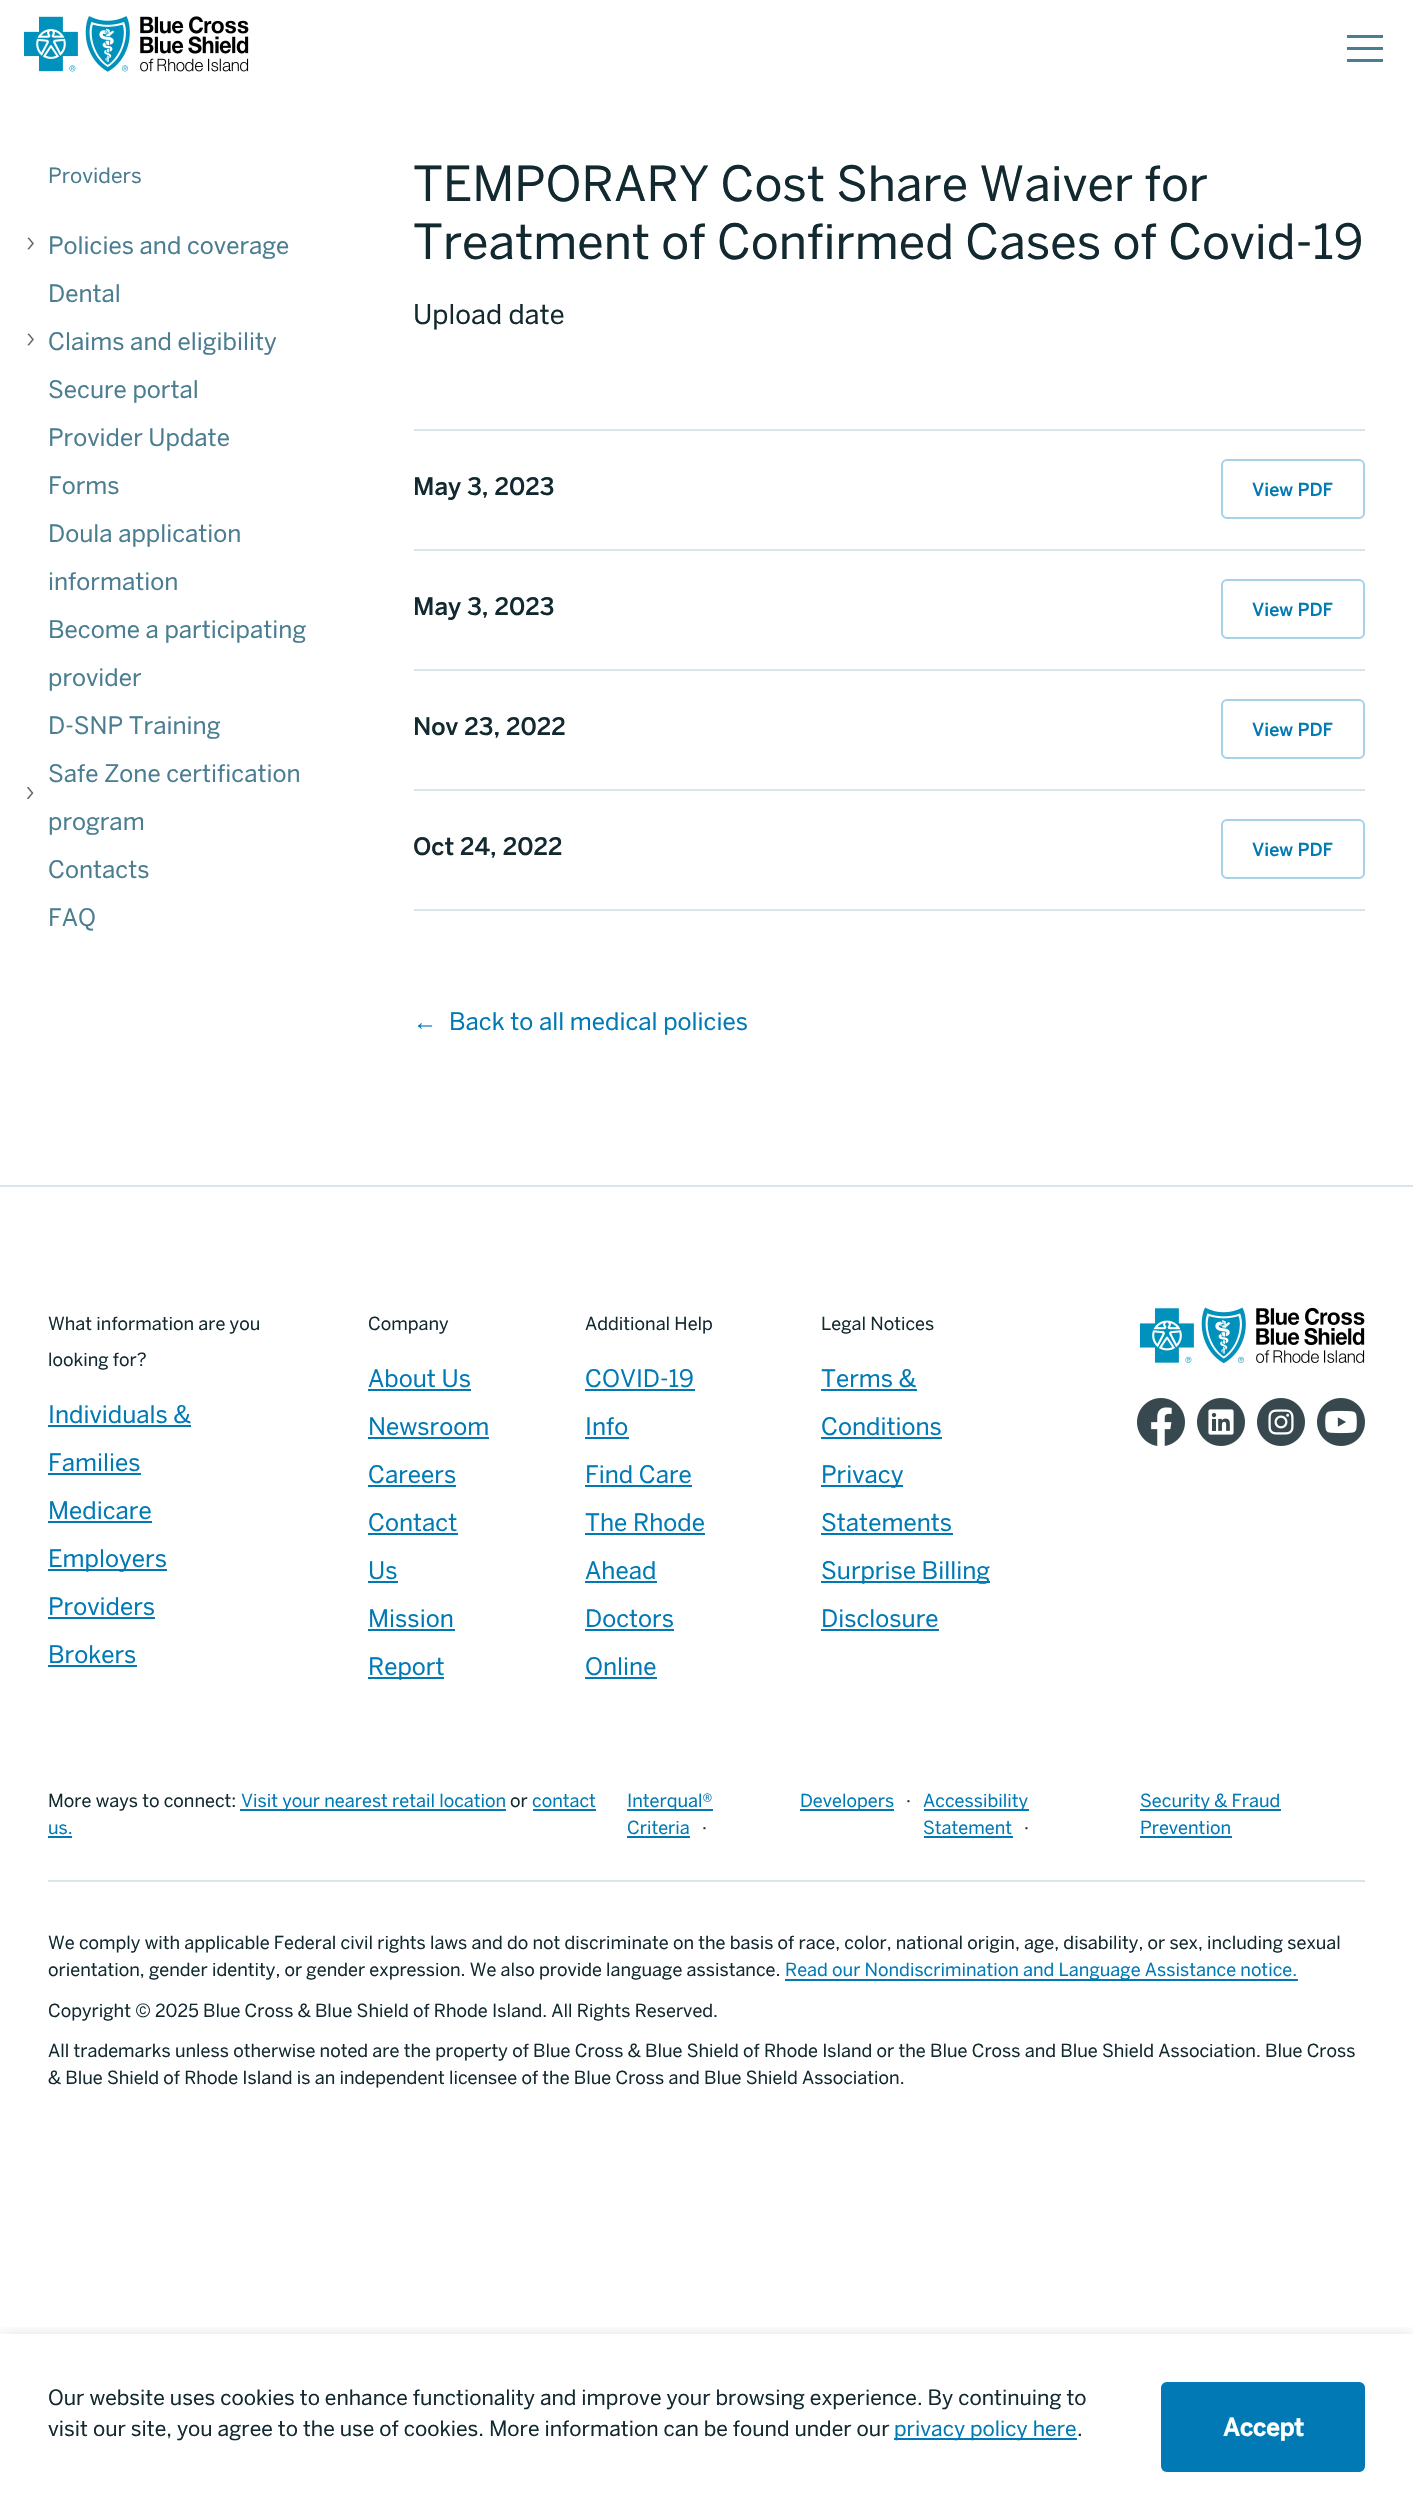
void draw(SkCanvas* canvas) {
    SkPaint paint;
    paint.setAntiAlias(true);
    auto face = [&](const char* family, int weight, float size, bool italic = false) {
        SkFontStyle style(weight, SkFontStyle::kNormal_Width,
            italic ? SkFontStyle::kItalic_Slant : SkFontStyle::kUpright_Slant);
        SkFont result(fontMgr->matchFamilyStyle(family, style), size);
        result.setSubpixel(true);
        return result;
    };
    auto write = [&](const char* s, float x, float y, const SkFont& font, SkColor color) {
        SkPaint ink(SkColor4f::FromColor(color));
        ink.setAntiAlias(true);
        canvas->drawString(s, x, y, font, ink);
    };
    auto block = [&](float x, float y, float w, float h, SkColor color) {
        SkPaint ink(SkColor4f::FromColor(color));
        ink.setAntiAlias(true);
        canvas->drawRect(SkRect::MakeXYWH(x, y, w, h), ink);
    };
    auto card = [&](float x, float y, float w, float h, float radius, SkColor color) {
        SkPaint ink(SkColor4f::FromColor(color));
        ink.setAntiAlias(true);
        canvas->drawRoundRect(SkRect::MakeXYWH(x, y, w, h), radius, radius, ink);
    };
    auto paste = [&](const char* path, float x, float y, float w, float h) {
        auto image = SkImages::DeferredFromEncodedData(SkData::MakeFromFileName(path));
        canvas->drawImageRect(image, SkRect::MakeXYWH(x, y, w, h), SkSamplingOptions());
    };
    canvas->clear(SK_ColorWHITE);
    paste("pic1.png", 24, 16, 225, 56);
    block(1347, 47, 36, 3, SkColorSetRGB(75, 125, 145));
    block(1347, 35, 36, 3, SkColorSetRGB(75, 125, 145));
    block(1347, 59, 36, 3, SkColorSetRGB(75, 125, 145));
    auto kFont1 = face("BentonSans", 400, 21);
    write("Providers", 48, 183, kFont1, SkColorSetRGB(75, 125, 145));
    canvas->save();
    canvas->clipPath(SkPathBuilder().moveTo(26, 249.5f).lineTo(26, 237.5f).lineTo(34, 237.5f).lineTo(34, 249.5f).close().detach(), true);
    paint.setStyle(SkPaint::kStroke_Style);
    paint.setStrokeWidth(1.5f);
    paint.setColor(SkColorSetRGB(102, 102, 102));
    canvas->drawPath(SkPathBuilder().moveTo(28, 249.5f).lineTo(33, 243.5f).lineTo(28, 237.5f).detach(), paint);
    canvas->restore();
    auto kFont2 = face("BentonSans", 400, 24);
    write("Policies and coverage", 48, 254, kFont2, SkColorSetRGB(75, 125, 145));
    write("Dental", 48, 302, kFont2, SkColorSetRGB(75, 125, 145));
    canvas->save();
    canvas->clipPath(SkPathBuilder().moveTo(26, 345.5f).lineTo(26, 333.5f).lineTo(34, 333.5f).lineTo(34, 345.5f).close().detach(), true);
    canvas->drawPath(SkPathBuilder().moveTo(28, 345.5f).lineTo(33, 339.5f).lineTo(28, 333.5f).detach(), paint);
    canvas->restore();
    write("Claims and eligibility", 48, 350, kFont2, SkColorSetRGB(75, 125, 145));
    write("Secure portal", 48, 398, kFont2, SkColorSetRGB(75, 125, 145));
    write("Provider Update", 48, 446, kFont2, SkColorSetRGB(75, 125, 145));
    write("Forms", 48, 494, kFont2, SkColorSetRGB(75, 125, 145));
    write("Doula application", 48, 542, kFont2, SkColorSetRGB(75, 125, 145));
    write("information", 48, 590, kFont2, SkColorSetRGB(75, 125, 145));
    write("Become a participating", 48, 638, kFont2, SkColorSetRGB(75, 125, 145));
    write("provider", 48, 686, kFont2, SkColorSetRGB(75, 125, 145));
    write("D-SNP Training", 48, 734, kFont2, SkColorSetRGB(75, 125, 145));
    write("Safe Zone certification", 48, 782, kFont2, SkColorSetRGB(75, 125, 145));
    canvas->save();
    canvas->clipPath(SkPathBuilder().moveTo(26, 799).lineTo(26, 787).lineTo(34, 787).lineTo(34, 799).close().detach(), true);
    canvas->drawPath(SkPathBuilder().moveTo(27.5f, 799).lineTo(32.5f, 793).lineTo(27.5f, 787).detach(), paint);
    canvas->restore();
    write("program", 48, 830, kFont2, SkColorSetRGB(75, 125, 145));
    write("Contacts", 48, 878, kFont2, SkColorSetRGB(75, 125, 145));
    write("FAQ", 48, 926, kFont2, SkColorSetRGB(75, 125, 145));
    auto kFont3 = face("BentonSans", 400, 48);
    write("TEMPORARY Cost Share Waiver for", 413, 201, kFont3, SkColorSetRGB(18, 41, 48));
    write("Treatment of Confirmed Cases of Covid-19", 413, 259, kFont3, SkColorSetRGB(18, 41, 48));
    auto kFont4 = face("BentonSans", 400, 27);
    write("Upload date", 413, 324, kFont4, SkColorSetRGB(18, 41, 48));
    block(414, 549, 951, 2, SkColorSetRGB(219, 229, 233));
    block(414, 429, 951, 2, SkColorSetRGB(219, 229, 233));
    auto kFont5 = face("BentonSans", 500, 24);
    write("May 3, 2023", 413, 495, kFont5, SkColorSetRGB(18, 41, 48));
    paint.setStrokeWidth(2);
    paint.setColor(SkColorSetRGB(166, 210, 232));
    canvas->drawRoundRect(SkRect::MakeXYWH(1222, 460, 142, 58), 5, 5, paint);
    auto kFont6 = face("BentonSans", 500, 18);
    write("View PDF", 1252, 496, kFont6, SkColorSetRGB(0, 121, 181));
    block(414, 669, 951, 2, SkColorSetRGB(219, 229, 233));
    write("May 3, 2023", 413, 615, kFont5, SkColorSetRGB(18, 41, 48));
    canvas->drawRoundRect(SkRect::MakeXYWH(1222, 580, 142, 58), 5, 5, paint);
    write("View PDF", 1252, 616, kFont6, SkColorSetRGB(0, 121, 181));
    block(414, 789, 951, 2, SkColorSetRGB(219, 229, 233));
    write("Nov 23, 2022", 413, 735, kFont5, SkColorSetRGB(18, 41, 48));
    canvas->drawRoundRect(SkRect::MakeXYWH(1222, 700, 142, 58), 5, 5, paint);
    write("View PDF", 1252, 736, kFont6, SkColorSetRGB(0, 121, 181));
    block(414, 909, 951, 2, SkColorSetRGB(219, 229, 233));
    write("Oct 24, 2022", 413, 855, kFont5, SkColorSetRGB(18, 41, 48));
    canvas->drawRoundRect(SkRect::MakeXYWH(1222, 820, 142, 58), 5, 5, paint);
    write("View PDF", 1252, 856, kFont6, SkColorSetRGB(0, 121, 181));
    auto kFont7 = face("Liberation Serif", 400, 24);
    write("←", 413, 1030, kFont7, SkColorSetRGB(0, 121, 181));
    write("Back to all medical policies", 449, 1030, kFont2, SkColorSetRGB(0, 121, 181));
    block(0, 1185, 1413, 2, SkColorSetRGB(219, 229, 233));
    auto kFont8 = face("BentonSans", 400, 18);
    write("What information are you", 48, 1330, kFont8, SkColorSetRGB(18, 41, 48));
    write("looking for?", 48, 1366, kFont8, SkColorSetRGB(18, 41, 48));
    write("Individuals &", 48, 1423, kFont2, SkColorSetRGB(0, 121, 181));
    block(48, 1425, 143, 2, SkColorSetRGB(0, 121, 181));
    write("Families", 48, 1471, kFont2, SkColorSetRGB(0, 121, 181));
    block(48, 1473, 93, 2, SkColorSetRGB(0, 121, 181));
    write("Medicare", 48, 1519, kFont2, SkColorSetRGB(0, 121, 181));
    block(48, 1521, 104, 2, SkColorSetRGB(0, 121, 181));
    block(48, 1569, 119, 2, SkColorSetRGB(0, 121, 181));
    write("Employers", 48, 1567, kFont2, SkColorSetRGB(0, 121, 181));
    write("Providers", 48, 1615, kFont2, SkColorSetRGB(0, 121, 181));
    block(48, 1617, 107, 2, SkColorSetRGB(0, 121, 181));
    write("Brokers", 48, 1663, kFont2, SkColorSetRGB(0, 121, 181));
    block(48, 1665, 89, 2, SkColorSetRGB(0, 121, 181));
    write("Company", 368, 1330, kFont8, SkColorSetRGB(18, 41, 48));
    write("About Us", 368, 1387, kFont2, SkColorSetRGB(0, 121, 181));
    block(368, 1389, 103, 2, SkColorSetRGB(0, 121, 181));
    write("Newsroom", 368, 1435, kFont2, SkColorSetRGB(0, 121, 181));
    block(368, 1437, 121, 2, SkColorSetRGB(0, 121, 181));
    write("Careers", 368, 1483, kFont2, SkColorSetRGB(0, 121, 181));
    block(368, 1485, 88, 2, SkColorSetRGB(0, 121, 181));
    write("Contact", 368, 1531, kFont2, SkColorSetRGB(0, 121, 181));
    block(368, 1533, 90, 2, SkColorSetRGB(0, 121, 181));
    write("Us", 368, 1579, kFont2, SkColorSetRGB(0, 121, 181));
    block(368, 1581, 30, 2, SkColorSetRGB(0, 121, 181));
    write("Mission", 368, 1627, kFont2, SkColorSetRGB(0, 121, 181));
    block(368, 1629, 87, 2, SkColorSetRGB(0, 121, 181));
    block(368, 1677, 76, 2, SkColorSetRGB(0, 121, 181));
    write("Report", 368, 1675, kFont2, SkColorSetRGB(0, 121, 181));
    write("Additional Help", 585, 1330, kFont8, SkColorSetRGB(18, 41, 48));
    write("COVID-19", 585, 1387, kFont2, SkColorSetRGB(0, 121, 181));
    block(585, 1389, 110, 2, SkColorSetRGB(0, 121, 181));
    write("Info", 585, 1435, kFont2, SkColorSetRGB(0, 121, 181));
    block(585, 1437, 44, 2, SkColorSetRGB(0, 121, 181));
    write("Find Care", 585, 1483, kFont2, SkColorSetRGB(0, 121, 181));
    block(585, 1485, 107, 2, SkColorSetRGB(0, 121, 181));
    write("The Rhode", 585, 1531, kFont2, SkColorSetRGB(0, 121, 181));
    block(585, 1533, 120, 2, SkColorSetRGB(0, 121, 181));
    write("Ahead", 585, 1579, kFont2, SkColorSetRGB(0, 121, 181));
    block(585, 1581, 72, 2, SkColorSetRGB(0, 121, 181));
    write("Doctors", 585, 1627, kFont2, SkColorSetRGB(0, 121, 181));
    block(585, 1629, 89, 2, SkColorSetRGB(0, 121, 181));
    write("Online", 585, 1675, kFont2, SkColorSetRGB(0, 121, 181));
    block(585, 1677, 72, 2, SkColorSetRGB(0, 121, 181));
    write("Legal Notices", 821, 1330, kFont8, SkColorSetRGB(18, 41, 48));
    write("Terms &", 821, 1387, kFont2, SkColorSetRGB(0, 121, 181));
    block(821, 1389, 96, 2, SkColorSetRGB(0, 121, 181));
    write("Conditions", 821, 1435, kFont2, SkColorSetRGB(0, 121, 181));
    block(821, 1437, 121, 2, SkColorSetRGB(0, 121, 181));
    block(821, 1485, 82, 2, SkColorSetRGB(0, 121, 181));
    write("Privacy", 821, 1483, kFont2, SkColorSetRGB(0, 121, 181));
    write("Statements", 821, 1531, kFont2, SkColorSetRGB(0, 121, 181));
    block(821, 1533, 132, 2, SkColorSetRGB(0, 121, 181));
    block(821, 1581, 169, 2, SkColorSetRGB(0, 121, 181));
    write("Surprise Billing", 821, 1579, kFont2, SkColorSetRGB(0, 121, 181));
    write("Disclosure", 821, 1627, kFont2, SkColorSetRGB(0, 121, 181));
    block(821, 1629, 118, 2, SkColorSetRGB(0, 121, 181));
    paste("pic2.png", 1140, 1307, 225, 57);
    paste("pic3.png", 1137, 1398, 48, 48);
    paste("pic4.png", 1197, 1398, 48, 48);
    paste("pic5.png", 1257, 1398, 48, 48);
    paste("pic6.png", 1317, 1398, 48, 48);
    write("More ways to connect:", 48, 1807, kFont8, SkColorSetRGB(18, 41, 48));
    block(240, 1809, 266, 2, SkColorSetRGB(0, 121, 181));
    write("Visit your nearest retail location", 241, 1807, kFont8, SkColorSetRGB(0, 121, 181));
    write("or", 510, 1807, kFont8, SkColorSetRGB(18, 41, 48));
    write("contact", 532, 1807, kFont8, SkColorSetRGB(0, 121, 181));
    block(533, 1809, 63, 2, SkColorSetRGB(0, 121, 181));
    write("us.", 48, 1834, kFont8, SkColorSetRGB(0, 121, 181));
    block(48, 1836, 24, 2, SkColorSetRGB(0, 121, 181));
    block(627, 1809, 86, 2, SkColorSetRGB(0, 121, 181));
    write("Interqual®", 627, 1807, kFont8, SkColorSetRGB(0, 121, 181));
    write("Criteria", 627, 1834, kFont8, SkColorSetRGB(0, 121, 181));
    block(627, 1836, 63, 2, SkColorSetRGB(0, 121, 181));
    write("·", 702, 1834, kFont8, SkColorSetRGB(18, 41, 48));
    block(800, 1809, 94, 2, SkColorSetRGB(0, 121, 181));
    write("Developers", 800, 1807, kFont8, SkColorSetRGB(0, 121, 181));
    write("·", 906, 1807, kFont8, SkColorSetRGB(18, 41, 48));
    block(924, 1809, 105, 2, SkColorSetRGB(0, 121, 181));
    write("Accessibility", 923, 1807, kFont8, SkColorSetRGB(0, 121, 181));
    write("Statement", 923, 1834, kFont8, SkColorSetRGB(0, 121, 181));
    block(924, 1836, 89, 2, SkColorSetRGB(0, 121, 181));
    write("·", 1024, 1834, kFont8, SkColorSetRGB(18, 41, 48));
    block(1140, 1809, 141, 2, SkColorSetRGB(0, 121, 181));
    write("Security & Fraud", 1140, 1807, kFont8, SkColorSetRGB(0, 121, 181));
    write("Prevention", 1140, 1834, kFont8, SkColorSetRGB(0, 121, 181));
    block(1140, 1836, 92, 2, SkColorSetRGB(0, 121, 181));
    block(48, 1880, 1317, 2, SkColorSetRGB(219, 229, 233));
    write("We comply with applicable Federal civil rights laws and do not discriminate on the basis of race, color, national origin, age, disability, or sex, including sexual", 48, 1949, kFont8, SkColorSetRGB(18, 41, 48));
    write("orientation, gender identity, or gender expression. We also provide language assistance.", 48, 1976, kFont8, SkColorSetRGB(18, 41, 48));
    block(785, 1979, 513, 2, SkColorSetRGB(0, 121, 181));
    write("Read our Nondiscrimination and Language Assistance notice.", 785, 1976, kFont8, SkColorSetRGB(0, 121, 181));
    write("Copyright © 2025 Blue Cross & Blue Shield of Rhode Island. All Rights Reserved.", 48, 2017, kFont8, SkColorSetRGB(18, 41, 48));
    write("All trademarks unless otherwise noted are the property of Blue Cross & Blue Shield of Rhode Island or the Blue Cross and Blue Shield Association. Blue Cross", 48, 2057, kFont8, SkColorSetRGB(18, 41, 48));
    write("& Blue Shield of Rhode Island is an independent licensee of the Blue Cross and Blue Shield Association.", 48, 2084, kFont8, SkColorSetRGB(18, 41, 48));
    canvas->save();
    canvas->clipRect(SkRect::MakeXYWH(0, 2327, 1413, 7));
    paint.setStyle(SkPaint::kFill_Style);
    paint.setColor(SkColorSetARGB(51, 0, 0, 0));
    paint.setMaskFilter(SkMaskFilter::MakeBlur(kNormal_SkBlurStyle, 9));
    canvas->drawRect(SkRect::MakeXYWH(0, 2339, 1413, 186), paint);
    paint.setMaskFilter(nullptr);
    canvas->restore();
    write("Our website uses cookies to enhance functionality and improve your browsing experience. By continuing to", 48, 2405, kFont1, SkColorSetRGB(18, 41, 48));
    write("visit our site, you agree to the use of cookies. More information can be found under our", 48, 2436, kFont1, SkColorSetRGB(18, 41, 48));
    block(894, 2438, 183, 2, SkColorSetRGB(0, 121, 181));
    write("privacy policy here", 894, 2436, kFont1, SkColorSetRGB(0, 121, 181));
    write(".", 1077, 2436, kFont1, SkColorSetRGB(18, 41, 48));
    card(1161, 2382, 204, 90, 6, SkColorSetRGB(0, 121, 181));
    paint.setStyle(SkPaint::kStroke_Style);
    paint.setColor(SkColorSetARGB(89, 0, 125, 188));
    canvas->drawRoundRect(SkRect::MakeXYWH(1162, 2383, 202, 88), 5, 5, paint);
    auto kFont9 = face("BentonSans", 700, 24);
    write("Accept", 1223, 2436, kFont9, SK_ColorWHITE);
}
